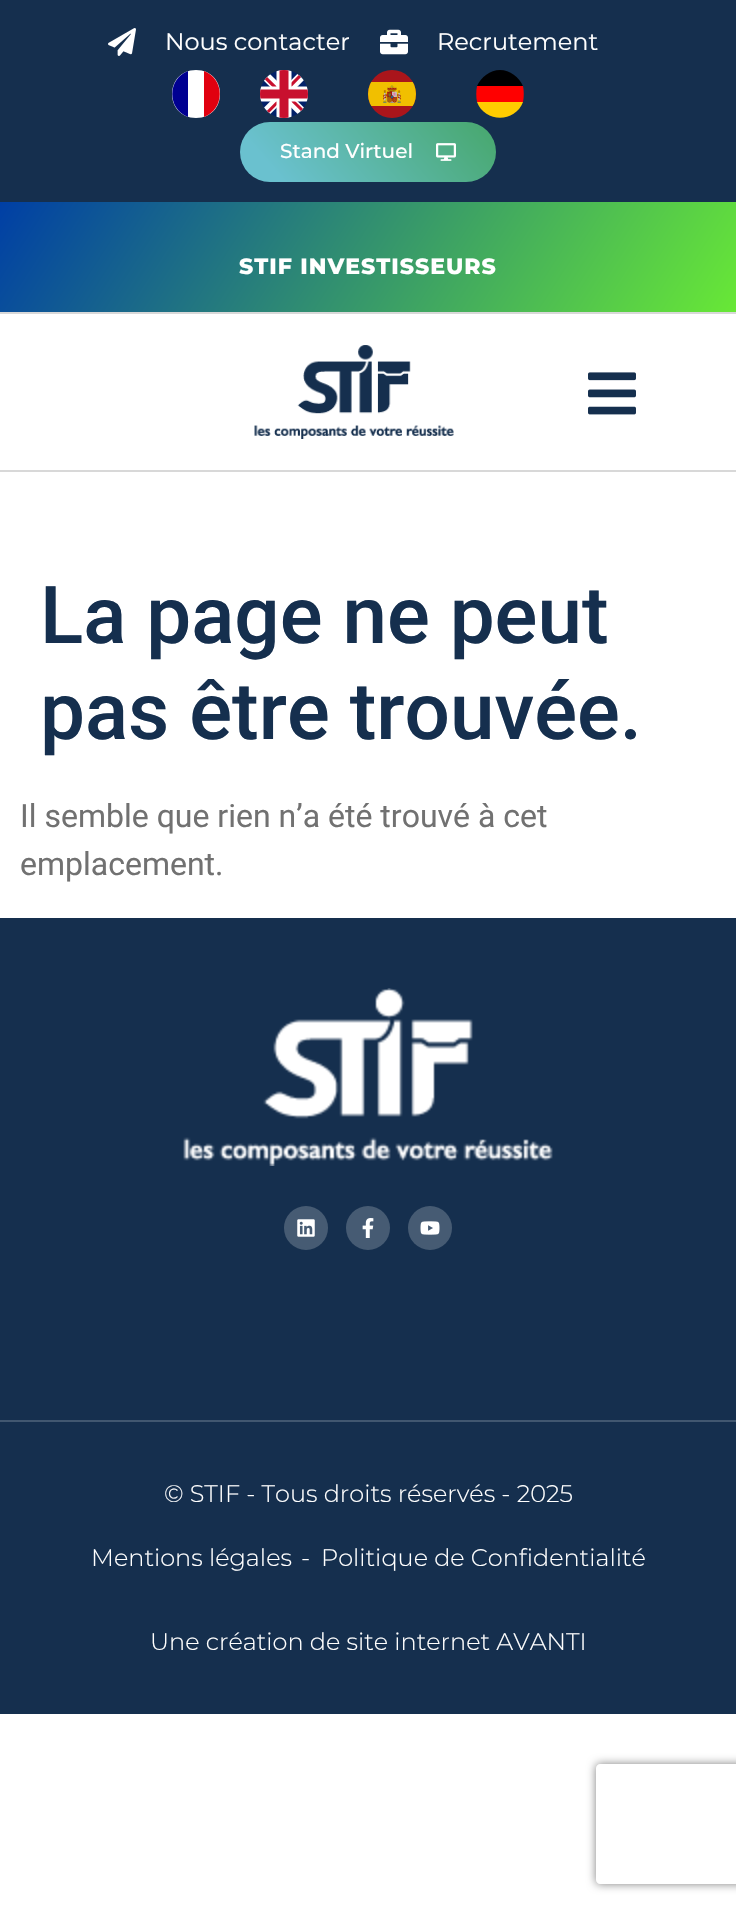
void draw(SkCanvas* canvas) {
    SkPaint paint;
    paint.setAntiAlias(true);
    auto face = [&](const char* family, int weight, float size, bool italic = false) {
        SkFontStyle style(weight, SkFontStyle::kNormal_Width,
            italic ? SkFontStyle::kItalic_Slant : SkFontStyle::kUpright_Slant);
        SkFont result(fontMgr->matchFamilyStyle(family, style), size);
        result.setSubpixel(true);
        return result;
    };
    auto write = [&](const char* s, float x, float y, const SkFont& font, SkColor color) {
        SkPaint ink(SkColor4f::FromColor(color));
        ink.setAntiAlias(true);
        canvas->drawString(s, x, y, font, ink);
    };
    auto writeSpaced = [&](const char* s, float x, float y, const SkFont& font, const SkPaint& ink, float letter, float word) {
        std::vector<SkGlyphID> glyphs(font.countText(s, strlen(s), SkTextEncoding::kUTF8));
        std::vector<float> xs(glyphs.size());
        font.textToGlyphs(s, strlen(s), SkTextEncoding::kUTF8, glyphs);
        font.getXPos(glyphs, xs, x);
        float extra = 0;
        for (size_t i = 0; i < glyphs.size(); i++) {
            xs[i] += extra;
            extra += letter + word * (glyphs[i] == font.unicharToGlyph(' '));
        }
        canvas->drawTextBlob(SkTextBlob::MakeFromPosHGlyphs(glyphs, xs, y, font), 0, 0, ink);
    };
    auto block = [&](float x, float y, float w, float h, SkColor color) {
        SkPaint ink(SkColor4f::FromColor(color));
        ink.setAntiAlias(true);
        canvas->drawRect(SkRect::MakeXYWH(x, y, w, h), ink);
    };
    auto paste = [&](const char* path, float x, float y, float w, float h) {
        auto image = SkImages::DeferredFromEncodedData(SkData::MakeFromFileName(path));
        canvas->drawImageRect(image, SkRect::MakeXYWH(x, y, w, h), SkSamplingOptions());
    };
    canvas->clear(SK_ColorWHITE);
    block(0, 0, 736, 202, SkColorSetRGB(21, 47, 78));
    paste("pic1.png", 108, 28, 28, 28);
    auto kFont1 = face("Montserrat", 400, 24);
    write("Nous contacter", 165, 50, kFont1, SK_ColorWHITE);
    paste("pic2.png", 380, 29, 28, 26);
    write("Recrutement", 437, 50, kFont1, SK_ColorWHITE);
    paint.setColor(SK_ColorWHITE);
    canvas->drawPath(SkPathBuilder().moveTo(196, 70).cubicTo(228, 70, 228, 118, 196, 118).cubicTo(164, 118, 164, 70, 196, 70).close().detach(), paint);
    paint.setColor(SkColorSetRGB(0, 0, 145));
    canvas->drawPath(SkPathBuilder().moveTo(188, 117).cubicTo(167, 109, 167, 79, 188, 71).close().detach(), paint);
    paint.setColor(SkColorSetRGB(225, 0, 15));
    canvas->drawPath(SkPathBuilder().moveTo(204, 71).cubicTo(225, 79, 225, 109, 204, 117).close().detach(), paint);
    paste("pic3.png", 260, 70, 48, 48);
    paste("pic4.png", 368, 70, 48, 48);
    paint.setColor(SkColorSetRGB(255, 204, 0));
    canvas->drawPath(SkPathBuilder().moveTo(523, 102).cubicTo(515, 123, 485, 123, 477, 102).close().detach(), paint);
    paint.setColor(SkColorSetRGB(0, 0, 1));
    canvas->drawPath(SkPathBuilder().moveTo(500, 70).cubicTo(510, 70, 519, 77, 523, 86).lineTo(477, 86).cubicTo(481, 77, 490, 70, 500, 70).close().detach(), paint);
    paint.setColor(SkColorSetRGB(255, 0, 0));
    canvas->drawPath(SkPathBuilder().moveTo(477, 102).cubicTo(476, 97, 476, 91, 477, 86).lineTo(523, 86).cubicTo(524, 91, 524, 97, 523, 102).close().detach(), paint);
    {
        const SkColor colors[] = {SkColorSetRGB(106, 193, 207), SkColorSetRGB(71, 167, 108)};
        const float stops[] = {0.14f, 1};
        const SkPoint ends[] = {{280, 228}, {456, 76}};
        paint.setShader(SkGradientShader::MakeLinear(ends, colors, stops, 2, SkTileMode::kClamp));
        paint.setAlpha(255);
    }
    canvas->drawRoundRect(SkRect::MakeXYWH(240, 122, 256, 60), 30, 30, paint);
    auto kFont2 = face("Montserrat", 500, 20);
    write("Stand Virtuel", 280, 158, kFont2, SK_ColorWHITE);
    paste("pic5.png", 436, 143, 20, 18);
    {
        const SkColor colors[] = {SkColorSetRGB(0, 63, 165), SkColorSetRGB(104, 232, 54)};
        const float stops[] = {0, 1};
        const SkPoint ends[] = {{84, 73}, {652, 441}};
        paint.setShader(SkGradientShader::MakeLinear(ends, colors, stops, 2, SkTileMode::kClamp));
        paint.setAlpha(255);
    }
    canvas->drawRect(SkRect::MakeXYWH(0, 202, 736, 110), paint);
    block(0, 312, 736, 2, SkColorSetRGB(216, 216, 216));
    auto kFont3 = face("Montserrat", 800, 22);
    paint.setShader(nullptr);
    paint.setColor(SK_ColorWHITE);
    writeSpaced("STIF INVESTISSEURS", 239, 274, kFont3, paint, 1, 0);
    block(0, 470, 736, 2, SkColorSetRGB(216, 216, 216));
    paste("pic6.png", 254, 345, 200, 94);
    paste("pic7.png", 588, 372, 48, 43);
    auto kFont4 = face("Roboto", 500, 80);
    write("La page ne peut", 40, 643, kFont4, SkColorSetRGB(21, 47, 78));
    write("pas être trouvée.", 40, 739, kFont4, SkColorSetRGB(21, 47, 78));
    auto kFont5 = face("Roboto", 400, 32);
    write("Il semble que rien n’a été trouvé à cet", 20, 827, kFont5, SkColorSetRGB(113, 113, 113));
    write("emplacement.", 20, 875, kFont5, SkColorSetRGB(113, 113, 113));
    block(0, 918, 736, 502, SkColorSetRGB(21, 47, 78));
    paste("pic8.png", 183, 988, 370, 178);
    paint.setColor(SkColorSetRGB(70, 91, 115));
    canvas->drawCircle(306, 1228, 22, paint);
    paste("pic9.png", 297, 1219, 18, 18);
    canvas->drawCircle(368, 1228, 22, paint);
    paste("pic10.png", 362, 1218, 12, 20);
    canvas->drawCircle(430, 1228, 22, paint);
    paste("pic11.png", 420, 1221, 20, 14);
    block(0, 1422, 736, 292, SkColorSetRGB(21, 47, 78));
    block(0, 1420, 736, 2, SkColorSetRGB(65, 87, 112));
    auto kFont6 = face("Montserrat", 300, 24);
    write("© STIF - Tous droits réservés - 2025", 164, 1502, kFont6, SK_ColorWHITE);
    write("Mentions légales", 91, 1566, kFont6, SK_ColorWHITE);
    write("-", 301, 1566, kFont6, SK_ColorWHITE);
    write("Politique de Confidentialité", 321, 1566, kFont6, SK_ColorWHITE);
    write("Une création de site internet AVANTI", 150, 1650, kFont6, SK_ColorWHITE);
    canvas->save();
    canvas->clipPath(SkPathBuilder(SkPathFillType::kEvenOdd).moveTo(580, 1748).lineTo(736, 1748).lineTo(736, 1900).lineTo(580, 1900).close().moveTo(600, 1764).lineTo(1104, 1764).cubicTo(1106, 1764, 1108, 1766, 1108, 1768).lineTo(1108, 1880).cubicTo(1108, 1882, 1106, 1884, 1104, 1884).lineTo(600, 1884).cubicTo(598, 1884, 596, 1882, 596, 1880).lineTo(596, 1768).cubicTo(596, 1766, 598, 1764, 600, 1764).close().detach(), true);
    paint.setColor(SkColorSetRGB(128, 128, 128));
    paint.setMaskFilter(SkMaskFilter::MakeBlur(kNormal_SkBlurStyle, 5));
    canvas->drawRoundRect(SkRect::MakeXYWH(596, 1764, 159, 120), 4, 4, paint);
    paint.setMaskFilter(nullptr);
    canvas->restore();
}
